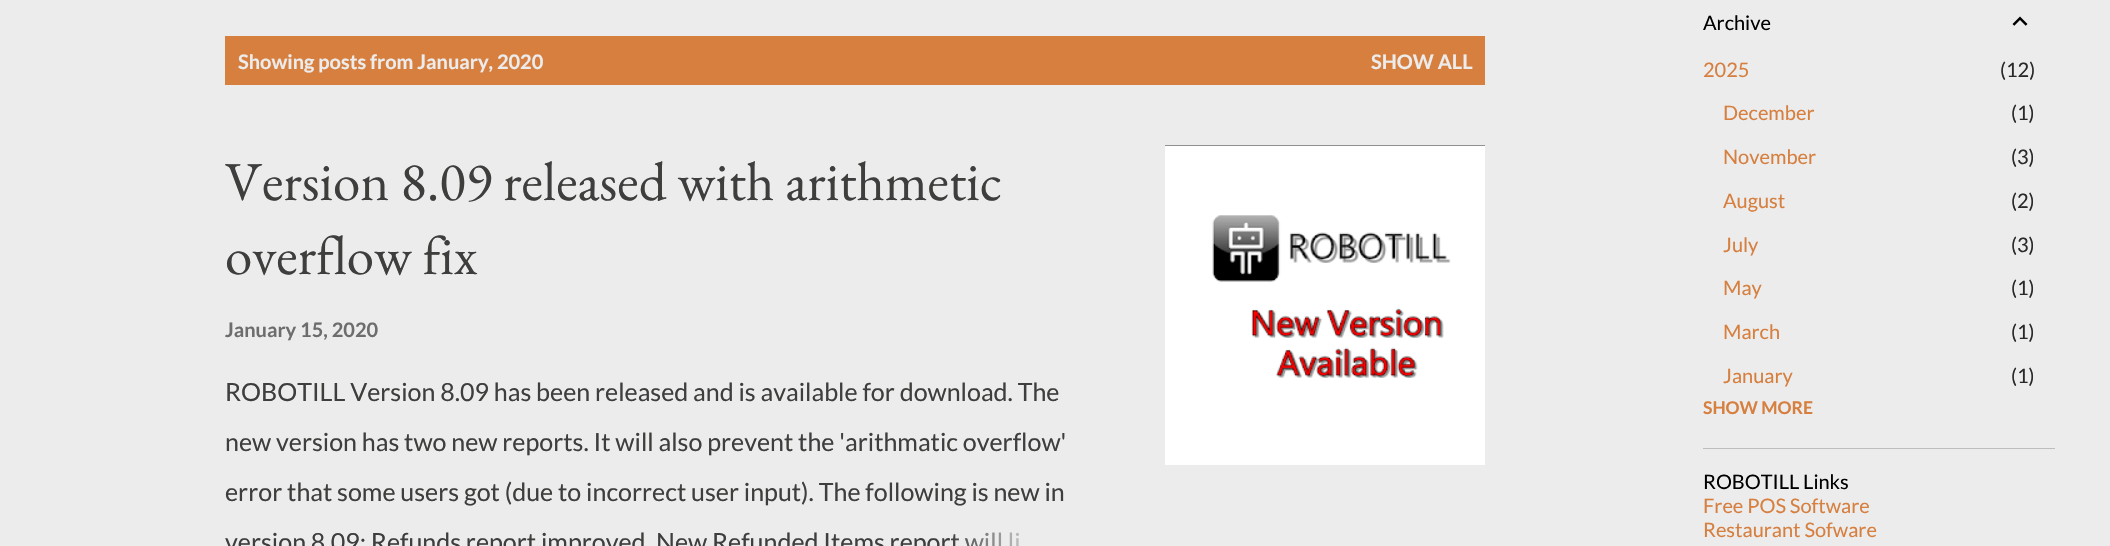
void draw(SkCanvas* canvas) {
    SkPaint paint;
    paint.setAntiAlias(true);
    auto face = [&](const char* family, int weight, float size, bool italic = false) {
        SkFontStyle style(weight, SkFontStyle::kNormal_Width,
            italic ? SkFontStyle::kItalic_Slant : SkFontStyle::kUpright_Slant);
        SkFont result(fontMgr->matchFamilyStyle(family, style), size);
        result.setSubpixel(true);
        return result;
    };
    auto write = [&](const char* s, float x, float y, const SkFont& font, SkColor color) {
        SkPaint ink(SkColor4f::FromColor(color));
        ink.setAntiAlias(true);
        canvas->drawString(s, x, y, font, ink);
    };
    auto block = [&](float x, float y, float w, float h, SkColor color) {
        SkPaint ink(SkColor4f::FromColor(color));
        ink.setAntiAlias(true);
        canvas->drawRect(SkRect::MakeXYWH(x, y, w, h), ink);
    };
    auto paste = [&](const char* path, float x, float y, float w, float h) {
        auto image = SkImages::DeferredFromEncodedData(SkData::MakeFromFileName(path));
        canvas->drawImageRect(image, SkRect::MakeXYWH(x, y, w, h), SkSamplingOptions());
    };
    canvas->clear(SkColorSetRGB(236, 236, 236));
    block(225, 36, 1260, 49, SkColorSetRGB(214, 127, 63));
    auto kFont1 = face("Lato", 700, 20);
    write("Showing posts from January, 2020", 238, 69, kFont1, SkColorSetRGB(236, 236, 236));
    write("SHOW ALL", 1371, 69, kFont1, SkColorSetRGB(236, 236, 236));
    auto kFont2 = face("EB Garamond", 400, 55);
    write("Version 8.09 released with arithmetic", 225, 200, kFont2, SkColorSetRGB(62, 63, 60));
    write("overflow fix", 225, 274, kFont2, SkColorSetRGB(62, 63, 60));
    write("January 15, 2020", 225, 337, kFont1, SkColorSetRGB(109, 109, 109));
    auto kFont3 = face("Lato", 400, 25);
    write("ROBOTILL Version 8.09 has been released and is available for download. The", 225, 401, kFont3, SkColorSetRGB(62, 63, 60));
    write("new version has two new reports. It will also prevent the 'arithmatic overflow'", 225, 451, kFont3, SkColorSetRGB(62, 63, 60));
    write("error that some users got (due to incorrect user input). The following is new in", 225, 501, kFont3, SkColorSetRGB(62, 63, 60));
    write("version 8.09: Refunds report improved", 225, 551, kFont3, SkColorSetRGB(62, 63, 60));
    write("New Refunded Items report will li", 656, 551, kFont3, SkColorSetRGB(62, 63, 60));
    {
        const SkColor colors[] = {SkColorSetRGB(236, 236, 236), SkColorSetRGB(236, 236, 236), SkColorSetARGB(0, 236, 236, 236)};
        const float stops[] = {0, 0.2f, 1};
        const SkPoint ends[] = {{1070, 541}, {950, 541}};
        paint.setShader(SkGradientShader::MakeLinear(ends, colors, stops, 3, SkTileMode::kClamp));
        paint.setAlpha(255);
    }
    canvas->drawRect(SkRect::MakeXYWH(952, 532, 67, 14), paint);
    block(1165, 145, 320, 1, SK_ColorBLACK);
    paste("pic1.png", 1165, 145, 320, 320);
    auto kFont4 = face("Lato", 400, 20);
    write("Archive", 1703, 30, kFont4, SK_ColorBLACK);
    paste("pic2.png", 2012, 16, 16, 10);
    write("2025", 1703, 77, kFont4, SkColorSetRGB(214, 127, 63));
    write("(12)", 2000, 77, kFont4, SkColorSetRGB(41, 41, 41));
    write("December", 1723, 120, kFont4, SkColorSetRGB(214, 127, 63));
    write("(1)", 2011, 120, kFont4, SkColorSetRGB(41, 41, 41));
    write("November", 1723, 164, kFont4, SkColorSetRGB(214, 127, 63));
    write("(3)", 2011, 164, kFont4, SkColorSetRGB(41, 41, 41));
    write("August", 1723, 208, kFont4, SkColorSetRGB(214, 127, 63));
    write("(2)", 2011, 208, kFont4, SkColorSetRGB(41, 41, 41));
    write("July", 1723, 252, kFont4, SkColorSetRGB(214, 127, 63));
    write("(3)", 2011, 252, kFont4, SkColorSetRGB(41, 41, 41));
    write("May", 1723, 295, kFont4, SkColorSetRGB(214, 127, 63));
    write("(1)", 2011, 295, kFont4, SkColorSetRGB(41, 41, 41));
    write("March", 1723, 339, kFont4, SkColorSetRGB(214, 127, 63));
    write("(1)", 2011, 339, kFont4, SkColorSetRGB(41, 41, 41));
    write("January", 1723, 383, kFont4, SkColorSetRGB(214, 127, 63));
    write("(1)", 2011, 383, kFont4, SkColorSetRGB(41, 41, 41));
    auto kFont5 = face("Lato", 700, 17.5f);
    write("SHOW MORE", 1703, 414, kFont5, SkColorSetRGB(214, 127, 63));
    block(1703, 448, 352, 1, SkColorSetRGB(189, 189, 189));
    write("ROBOTILL Links", 1703, 489, kFont4, SK_ColorBLACK);
    write("Free POS Software", 1703, 513, kFont4, SkColorSetRGB(214, 127, 63));
    write("Restaurant Sofware", 1703, 537, kFont4, SkColorSetRGB(214, 127, 63));
}
